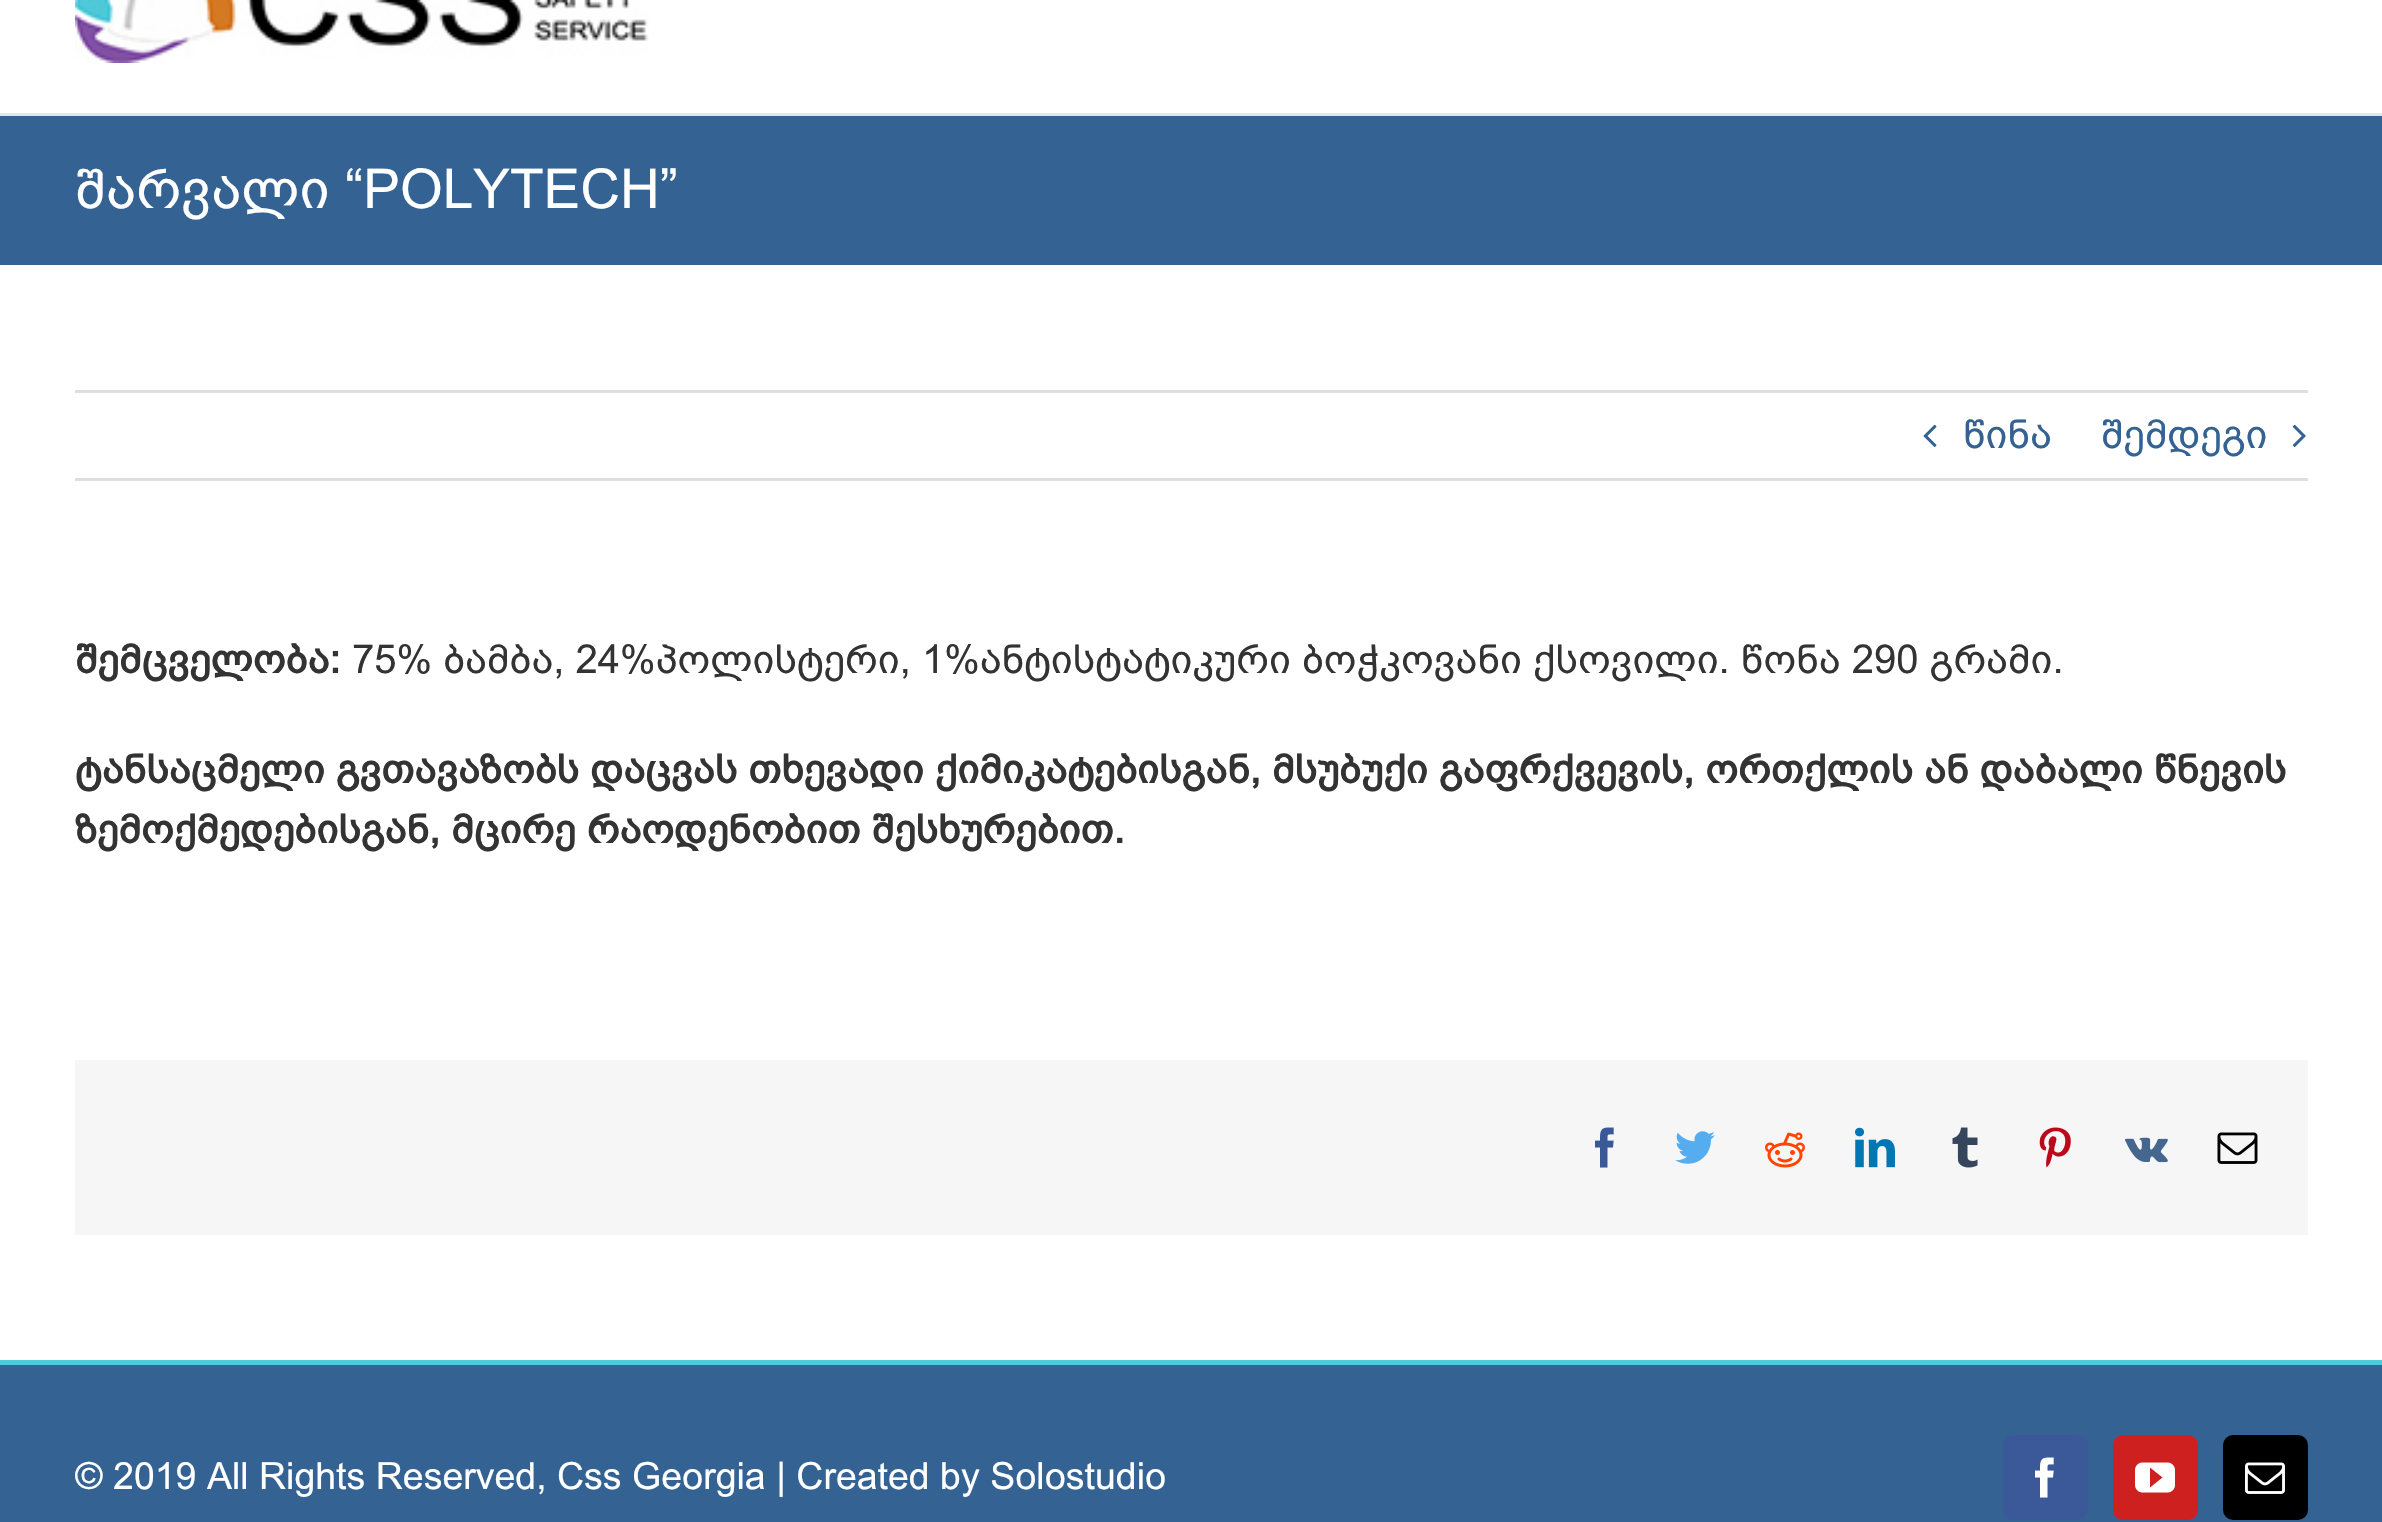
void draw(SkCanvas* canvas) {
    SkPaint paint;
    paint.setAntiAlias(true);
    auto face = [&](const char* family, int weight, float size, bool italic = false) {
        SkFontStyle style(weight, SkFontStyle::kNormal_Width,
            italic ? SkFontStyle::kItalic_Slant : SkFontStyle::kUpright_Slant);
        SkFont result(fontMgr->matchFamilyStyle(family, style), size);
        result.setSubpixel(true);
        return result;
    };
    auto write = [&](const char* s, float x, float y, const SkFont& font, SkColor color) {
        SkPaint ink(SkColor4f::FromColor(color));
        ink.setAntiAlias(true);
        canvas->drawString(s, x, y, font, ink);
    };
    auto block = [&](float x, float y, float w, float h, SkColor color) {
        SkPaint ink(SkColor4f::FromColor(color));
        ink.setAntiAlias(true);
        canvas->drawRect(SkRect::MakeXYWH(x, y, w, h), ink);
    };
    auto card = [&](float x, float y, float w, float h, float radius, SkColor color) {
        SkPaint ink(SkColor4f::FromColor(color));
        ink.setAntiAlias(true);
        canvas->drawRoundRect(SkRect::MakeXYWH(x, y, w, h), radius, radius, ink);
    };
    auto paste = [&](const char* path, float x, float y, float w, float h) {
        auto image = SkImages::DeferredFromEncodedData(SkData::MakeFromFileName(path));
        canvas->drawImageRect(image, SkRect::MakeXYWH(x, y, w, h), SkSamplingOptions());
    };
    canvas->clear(SK_ColorWHITE);
    block(0, 113, 2382, 3, SkColorSetRGB(229, 229, 229));
    paste("pic1.png", 75, 0, 574, 63);
    block(0, 116, 2382, 149, SkColorSetRGB(51, 98, 147));
    auto kFont1 = face("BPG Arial", 400, 55);
    write("შარვალი “POLYTECH”", 75, 208, kFont1, SK_ColorWHITE);
    block(75, 390, 2233, 3, SkColorSetRGB(224, 222, 222));
    block(75, 478, 2233, 3, SkColorSetRGB(224, 222, 222));
    paste("pic2.png", 1923, 424, 14, 23);
    auto kFont2 = face("BPG Arial", 400, 40);
    write("წინა", 1963, 448, kFont2, SkColorSetRGB(51, 98, 147));
    write("შემდეგი", 2101, 448, kFont2, SkColorSetRGB(51, 98, 147));
    paste("pic3.png", 2292, 424, 14, 23);
    auto kFont3 = face("BPG Arial", 700, 40);
    write("შემცველობა:", 75, 673, kFont3, SkColorSetRGB(51, 51, 51));
    write("75% ბამბა, 24%პოლისტერი, 1%ანტისტატიკური ბოჭკოვანი ქსოვილი. წონა 290 გრამი.", 352, 673, kFont2, SkColorSetRGB(51, 51, 51));
    write("ტანსაცმელი გვთავაზობს დაცვას თხევადი ქიმიკატებისგან, მსუბუქი გაფრქვევის, ორთქლის ან დაბალი წნევის", 75, 783, kFont3, SkColorSetRGB(51, 51, 51));
    write("ზემოქმედებისგან, მცირე რაოდენობით შესხურებით.", 75, 843, kFont3, SkColorSetRGB(51, 51, 51));
    block(75, 1060, 2233, 175, SkColorSetRGB(246, 246, 246));
    paste("pic4.png", 1595, 1127, 19, 41);
    paste("pic5.png", 1675, 1131, 40, 33);
    paste("pic6.png", 1765, 1132, 40, 36);
    paste("pic7.png", 1855, 1127, 40, 41);
    paste("pic8.png", 1952, 1127, 26, 41);
    paste("pic9.png", 2039, 1127, 32, 41);
    paste("pic10.png", 2125, 1137, 43, 26);
    paste("pic11.png", 2217, 1132, 41, 32);
    block(0, 1365, 2382, 157, SkColorSetRGB(51, 98, 147));
    block(0, 1360, 2382, 5, SkColorSetRGB(80, 201, 218));
    auto kFont4 = face("BPG Arial", 400, 37.5f);
    write("© 2019 All Rights Reserved, Css Georgia | Created by Solostudio", 75, 1489, kFont4, SK_ColorWHITE);
    card(2003, 1435, 85, 85, 10, SkColorSetRGB(59, 89, 152));
    paste("pic12.png", 2035, 1457, 19, 41);
    paint.setColor(SkColorSetRGB(205, 32, 31));
    canvas->drawRoundRect(SkRect::MakeXYWH(2114.5f, 1436.5f, 82, 82), 8.5f, 8.5f, paint);
    paint.setStyle(SkPaint::kStroke_Style);
    paint.setStrokeWidth(3);
    canvas->drawRoundRect(SkRect::MakeXYWH(2114.5f, 1436.5f, 82, 82), 8.5f, 8.5f, paint);
    paste("pic13.png", 2135, 1462, 40, 31);
    paint.setStyle(SkPaint::kFill_Style);
    paint.setColor(SK_ColorBLACK);
    canvas->drawRoundRect(SkRect::MakeXYWH(2224.5f, 1436.5f, 82, 82), 8.5f, 8.5f, paint);
    paint.setStyle(SkPaint::kStroke_Style);
    canvas->drawRoundRect(SkRect::MakeXYWH(2224.5f, 1436.5f, 82, 82), 8.5f, 8.5f, paint);
    paste("pic14.png", 2245, 1462, 40, 32);
}
